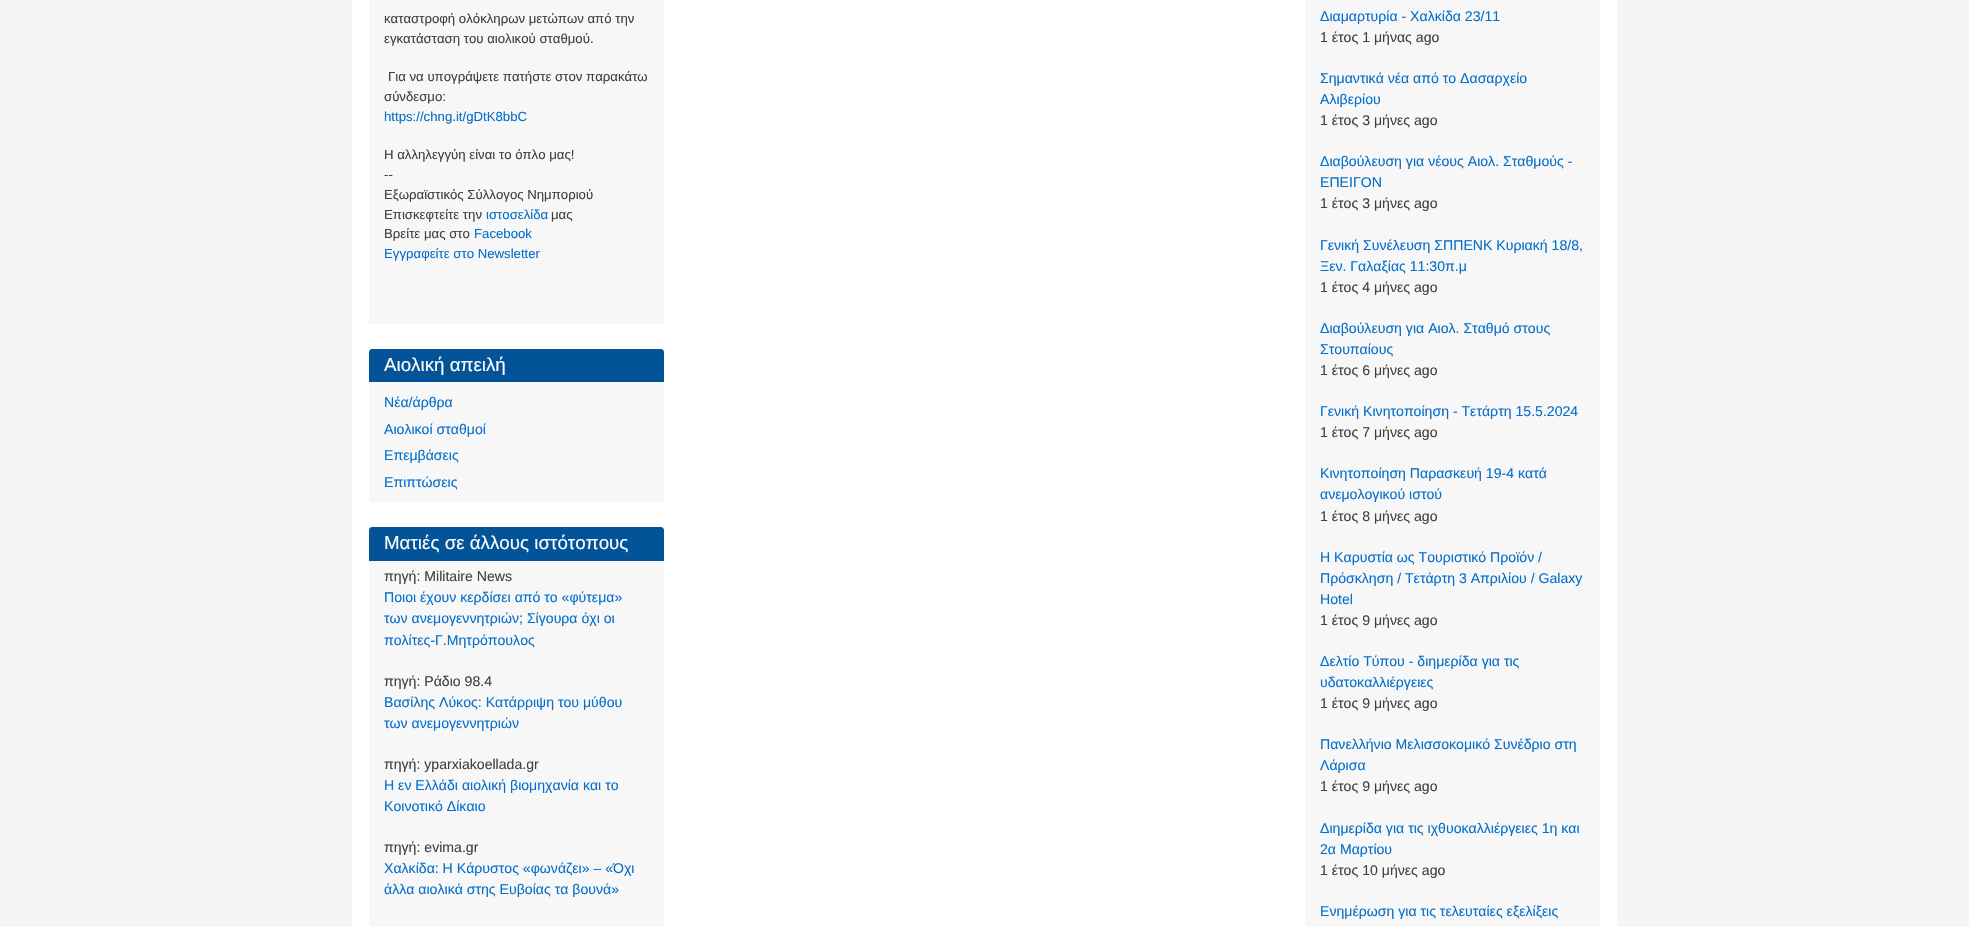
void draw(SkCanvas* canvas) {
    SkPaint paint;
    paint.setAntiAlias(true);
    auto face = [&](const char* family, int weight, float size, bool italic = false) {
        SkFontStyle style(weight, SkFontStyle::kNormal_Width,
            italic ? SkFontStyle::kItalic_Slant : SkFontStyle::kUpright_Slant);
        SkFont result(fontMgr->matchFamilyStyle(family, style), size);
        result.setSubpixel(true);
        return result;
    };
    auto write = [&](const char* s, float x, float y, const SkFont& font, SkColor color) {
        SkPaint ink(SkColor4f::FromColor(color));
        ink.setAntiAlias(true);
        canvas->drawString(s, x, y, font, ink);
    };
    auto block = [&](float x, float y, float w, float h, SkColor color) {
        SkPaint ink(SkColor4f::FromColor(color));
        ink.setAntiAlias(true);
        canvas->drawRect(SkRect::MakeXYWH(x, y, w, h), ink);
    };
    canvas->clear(SK_ColorWHITE);
    {
        const SkColor colors[] = {SkColorSetRGB(239, 239, 239), SkColorSetRGB(250, 250, 250)};
        const float stops[] = {0, 1};
        const SkPoint ends[] = {{984, -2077}, {985, 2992}};
        paint.setShader(SkGradientShader::MakeLinear(ends, colors, stops, 2, SkTileMode::kClamp));
        paint.setAlpha(255);
    }
    canvas->drawRect(SkRect::MakeXYWH(0, 0, 1969, 927), paint);
    block(352, 0, 1265, 927, SK_ColorWHITE);
    block(369, 0, 295, 324, SkColorSetRGB(247, 247, 247));
    auto kFont1 = face("Liberation Sans", 400, 13.2f);
    write("καταστροφή ολόκληρων μετώπων από την", 384, 23, kFont1, SkColorSetRGB(64, 64, 64));
    write("εγκατάσταση του αιολικού σταθμού.", 384, 43, kFont1, SkColorSetRGB(64, 64, 64));
    write("Για να υπογράψετε πατήστε στον παρακάτω", 388, 81, kFont1, SkColorSetRGB(64, 64, 64));
    write("σύνδεσμο:", 384, 101, kFont1, SkColorSetRGB(64, 64, 64));
    write("https://chng.it/gDtK8bbC", 384, 121, kFont1, SkColorSetRGB(5, 111, 203));
    write("Η αλληλεγγύη είναι το όπλο μας!", 384, 159, kFont1, SkColorSetRGB(64, 64, 64));
    write("--", 384, 179, kFont1, SkColorSetRGB(64, 64, 64));
    write("Εξωραϊστικός Σύλλογος Νημποριού", 384, 199, kFont1, SkColorSetRGB(64, 64, 64));
    write("Επισκεφτείτε την", 384, 219, kFont1, SkColorSetRGB(64, 64, 64));
    write("ιστοσελίδα", 486, 219, kFont1, SkColorSetRGB(5, 111, 203));
    write("μας", 551, 219, kFont1, SkColorSetRGB(64, 64, 64));
    write("Βρείτε μας στο", 384, 238, kFont1, SkColorSetRGB(64, 64, 64));
    write("Facebook", 474, 238, kFont1, SkColorSetRGB(5, 111, 203));
    write("Eγγραφείτε στο Newsletter", 384, 258, kFont1, SkColorSetRGB(5, 111, 203));
    block(369, 349, 295, 153, SkColorSetRGB(247, 247, 247));
    paint.setShader(nullptr);
    paint.setColor(SkColorSetRGB(3, 83, 153));
    canvas->drawPath(SkPathBuilder().moveTo(372, 349).lineTo(661, 349).cubicTo(662.5f, 349, 664, 350.5f, 664, 352).lineTo(664, 382).lineTo(369, 382).lineTo(369, 352).cubicTo(369, 350.5f, 370.5f, 349, 372, 349).close().detach(), paint);
    auto kFont2 = face("Liberation Sans", 400, 18.75f);
    write("Αιολική απειλή", 384, 371, kFont2, SkColorSetRGB(252, 252, 252));
    auto kFont3 = face("Liberation Sans", 400, 14.1f);
    write("Νέα/άρθρα", 384, 407, kFont3, SkColorSetRGB(5, 111, 203));
    write("Αιολικοί σταθμοί", 384, 434, kFont3, SkColorSetRGB(5, 111, 203));
    write("Επεμβάσεις", 384, 460, kFont3, SkColorSetRGB(5, 111, 203));
    write("Επιπτώσεις", 384, 487, kFont3, SkColorSetRGB(5, 111, 203));
    block(369, 527, 295, 400, SkColorSetRGB(247, 247, 247));
    canvas->drawPath(SkPathBuilder().moveTo(372, 527).lineTo(661, 527).cubicTo(662.5f, 527, 664, 528.5f, 664, 530).lineTo(664, 561).lineTo(369, 561).lineTo(369, 530).cubicTo(369, 528.5f, 370.5f, 527, 372, 527).close().detach(), paint);
    write("Ματιές σε άλλους ιστότοπους", 384, 549, kFont2, SkColorSetRGB(252, 252, 252));
    write("πηγή: Militaire News", 384, 581, kFont3, SkColorSetRGB(64, 64, 64));
    write("Ποιοι έχουν κερδίσει από το «φύτεμα»", 384, 602, kFont3, SkColorSetRGB(5, 111, 203));
    write("των ανεμογεννητριών; Σίγουρα όχι οι", 384, 623, kFont3, SkColorSetRGB(5, 111, 203));
    write("πολίτες-Γ.Μητρόπουλος", 384, 645, kFont3, SkColorSetRGB(5, 111, 203));
    write("πηγή: Ράδιο 98.4", 384, 686, kFont3, SkColorSetRGB(64, 64, 64));
    write("Βασίλης Λύκος: Κατάρριψη του μύθου", 384, 707, kFont3, SkColorSetRGB(5, 111, 203));
    write("των ανεμογεννητριών", 384, 728, kFont3, SkColorSetRGB(5, 111, 203));
    write("πηγή: yparxiakoellada.gr", 384, 769, kFont3, SkColorSetRGB(64, 64, 64));
    write("Η εν Ελλάδι αιολική βιομηχανία και το", 384, 790, kFont3, SkColorSetRGB(5, 111, 203));
    write("Κοινοτικό Δίκαιο", 384, 811, kFont3, SkColorSetRGB(5, 111, 203));
    write("πηγή: evima.gr", 384, 852, kFont3, SkColorSetRGB(64, 64, 64));
    write("Χαλκίδα: Η Κάρυστος «φωνάζει» – «Όχι", 384, 873, kFont3, SkColorSetRGB(5, 111, 203));
    write("άλλα αιολικά στης Ευβοίας τα βουνά»", 384, 894, kFont3, SkColorSetRGB(5, 111, 203));
    block(1305, 0, 295, 927, SkColorSetRGB(247, 247, 247));
    write("Διαμαρτυρία - Χαλκίδα 23/11", 1320, 21, kFont3, SkColorSetRGB(5, 111, 203));
    write("1 έτος 1 μήνας ago", 1320, 42, kFont3, SkColorSetRGB(64, 64, 64));
    write("Σημαντικά νέα από το Δασαρχείο", 1320, 83, kFont3, SkColorSetRGB(5, 111, 203));
    write("Αλιβερίου", 1320, 104, kFont3, SkColorSetRGB(5, 111, 203));
    write("1 έτος 3 μήνες ago", 1320, 125, kFont3, SkColorSetRGB(64, 64, 64));
    write("Διαβούλευση για νέους Αιολ. Σταθμούς -", 1320, 166, kFont3, SkColorSetRGB(5, 111, 203));
    write("ΕΠΕΙΓΟΝ", 1320, 187, kFont3, SkColorSetRGB(5, 111, 203));
    write("1 έτος 3 μήνες ago", 1320, 208, kFont3, SkColorSetRGB(64, 64, 64));
    write("Γενική Συνέλευση ΣΠΠΕΝΚ Κυριακή 18/8,", 1320, 250, kFont3, SkColorSetRGB(5, 111, 203));
    write("Ξεν. Γαλαξίας 11:30π.μ", 1320, 271, kFont3, SkColorSetRGB(5, 111, 203));
    write("1 έτος 4 μήνες ago", 1320, 292, kFont3, SkColorSetRGB(64, 64, 64));
    write("Διαβούλευση για Αιολ. Σταθμό στους", 1320, 333, kFont3, SkColorSetRGB(5, 111, 203));
    write("Στουπαίους", 1320, 354, kFont3, SkColorSetRGB(5, 111, 203));
    write("1 έτος 6 μήνες ago", 1320, 375, kFont3, SkColorSetRGB(64, 64, 64));
    write("Γενική Κινητοποίηση - Τετάρτη 15.5.2024", 1320, 416, kFont3, SkColorSetRGB(5, 111, 203));
    write("1 έτος 7 μήνες ago", 1320, 437, kFont3, SkColorSetRGB(64, 64, 64));
    write("Κινητοποίηση Παρασκευή 19-4 κατά", 1320, 478, kFont3, SkColorSetRGB(5, 111, 203));
    write("ανεμολογικού ιστού", 1320, 499, kFont3, SkColorSetRGB(5, 111, 203));
    write("1 έτος 8 μήνες ago", 1320, 521, kFont3, SkColorSetRGB(64, 64, 64));
    write("Η Καρυστία ως Τουριστικό Προϊόν /", 1320, 562, kFont3, SkColorSetRGB(5, 111, 203));
    write("Πρόσκληση / Τετάρτη 3 Απριλίου / Galaxy", 1320, 583, kFont3, SkColorSetRGB(5, 111, 203));
    write("Hotel", 1320, 604, kFont3, SkColorSetRGB(5, 111, 203));
    write("1 έτος 9 μήνες ago", 1320, 625, kFont3, SkColorSetRGB(64, 64, 64));
    write("Δελτίο Τύπου - διημερίδα για τις", 1320, 666, kFont3, SkColorSetRGB(5, 111, 203));
    write("υδατοκαλλιέργειες", 1320, 687, kFont3, SkColorSetRGB(5, 111, 203));
    write("1 έτος 9 μήνες ago", 1320, 708, kFont3, SkColorSetRGB(64, 64, 64));
    write("Πανελλήνιο Μελισσοκομικό Συνέδριο στη", 1320, 749, kFont3, SkColorSetRGB(5, 111, 203));
    write("Λάρισα", 1320, 770, kFont3, SkColorSetRGB(5, 111, 203));
    write("1 έτος 9 μήνες ago", 1320, 791, kFont3, SkColorSetRGB(64, 64, 64));
    write("Διημερίδα για τις ιχθυοκαλλιέργειες 1η και", 1320, 833, kFont3, SkColorSetRGB(5, 111, 203));
    write("2α Μαρτίου", 1320, 854, kFont3, SkColorSetRGB(5, 111, 203));
    write("1 έτος 10 μήνες ago", 1320, 875, kFont3, SkColorSetRGB(64, 64, 64));
    write("Ενημέρωση για τις τελευταίες εξελίξεις", 1320, 916, kFont3, SkColorSetRGB(5, 111, 203));
}
